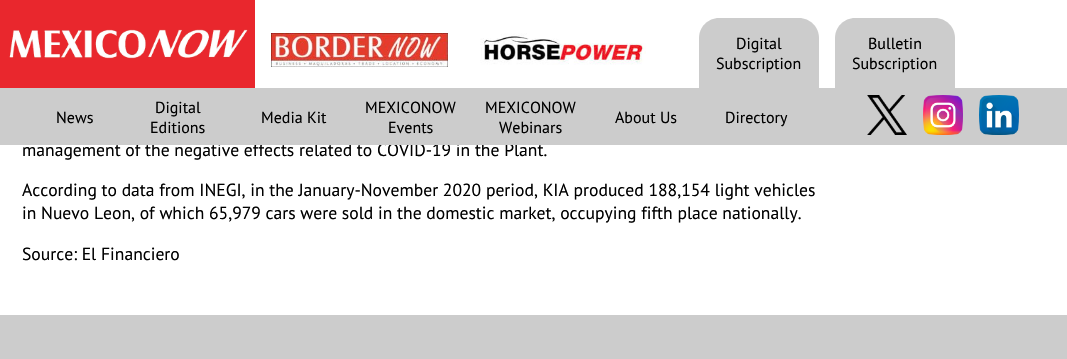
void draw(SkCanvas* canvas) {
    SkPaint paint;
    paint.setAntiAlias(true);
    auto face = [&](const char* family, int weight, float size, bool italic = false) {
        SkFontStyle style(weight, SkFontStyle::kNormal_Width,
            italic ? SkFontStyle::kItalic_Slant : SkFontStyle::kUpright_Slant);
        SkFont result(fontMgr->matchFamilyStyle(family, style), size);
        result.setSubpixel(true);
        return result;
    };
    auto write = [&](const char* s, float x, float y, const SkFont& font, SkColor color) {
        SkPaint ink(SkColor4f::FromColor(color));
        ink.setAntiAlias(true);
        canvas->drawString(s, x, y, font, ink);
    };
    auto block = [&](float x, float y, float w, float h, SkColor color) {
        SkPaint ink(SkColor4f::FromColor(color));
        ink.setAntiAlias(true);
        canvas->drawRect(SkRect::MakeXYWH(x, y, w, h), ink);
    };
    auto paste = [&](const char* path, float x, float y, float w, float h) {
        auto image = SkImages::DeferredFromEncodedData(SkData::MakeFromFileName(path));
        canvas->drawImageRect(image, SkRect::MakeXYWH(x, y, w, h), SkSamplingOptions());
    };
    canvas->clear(SK_ColorWHITE);
    block(0, 0, 255, 88, SkColorSetRGB(233, 39, 45));
    paste("pic1.png", 9, 29, 239, 30);
    paste("pic2.png", 271, 33, 177, 34);
    paste("pic3.png", 480, 33, 166, 32);
    paint.setColor(SkColorSetRGB(204, 204, 204));
    canvas->drawPath(SkPathBuilder().moveTo(719, 18).lineTo(799, 18).cubicTo(810, 18, 819, 27, 819, 38).lineTo(819, 88).lineTo(699, 88).lineTo(699, 38).cubicTo(699, 27, 708, 18, 719, 18).close().detach(), paint);
    auto kFont1 = face("PT Sans", 400, 16);
    write("Digital", 736, 49, kFont1, SK_ColorBLACK);
    write("Subscription", 716, 69, kFont1, SK_ColorBLACK);
    canvas->drawPath(SkPathBuilder().moveTo(855, 18).lineTo(935, 18).cubicTo(946, 18, 955, 27, 955, 38).lineTo(955, 88).lineTo(835, 88).lineTo(835, 38).cubicTo(835, 27, 844, 18, 855, 18).close().detach(), paint);
    write("Bulletin", 868, 49, kFont1, SK_ColorBLACK);
    write("Subscription", 852, 69, kFont1, SK_ColorBLACK);
    auto kFont2 = face("PT Sans", 400, 17.6f);
    write("management of the negative effects related to COVID-19 in the Plant.", 22, 156, kFont2, SK_ColorBLACK);
    block(0, 88, 1067, 57, SkColorSetRGB(204, 204, 204));
    write("News", 56, 123, kFont1, SK_ColorBLACK);
    write("Digital", 155, 113, kFont1, SK_ColorBLACK);
    write("Editions", 150, 133, kFont1, SK_ColorBLACK);
    write("Media Kit", 261, 123, kFont1, SK_ColorBLACK);
    write("MEXICONOW", 365, 113, kFont1, SK_ColorBLACK);
    write("Events", 388, 133, kFont1, SK_ColorBLACK);
    write("MEXICONOW", 485, 113, kFont1, SK_ColorBLACK);
    write("Webinars", 499, 133, kFont1, SK_ColorBLACK);
    write("About Us", 615, 123, kFont1, SK_ColorBLACK);
    write("Directory", 725, 123, kFont1, SK_ColorBLACK);
    paste("pic4.png", 867, 95, 40, 40);
    paste("pic5.png", 923, 95, 40, 40);
    paste("pic6.png", 979, 95, 40, 40);
    write("According to data from INEGI, in the January-November 2020 period, KIA produced 188,154 light vehicles", 22, 196, kFont2, SK_ColorBLACK);
    write("in Nuevo Leon, of which 65,979 cars were sold in the domestic market, occupying fifth place nationally.", 22, 219, kFont2, SK_ColorBLACK);
    write("Source: El Financiero", 22, 260, kFont2, SK_ColorBLACK);
    block(0, 315, 1067, 44, SkColorSetRGB(204, 204, 204));
}
